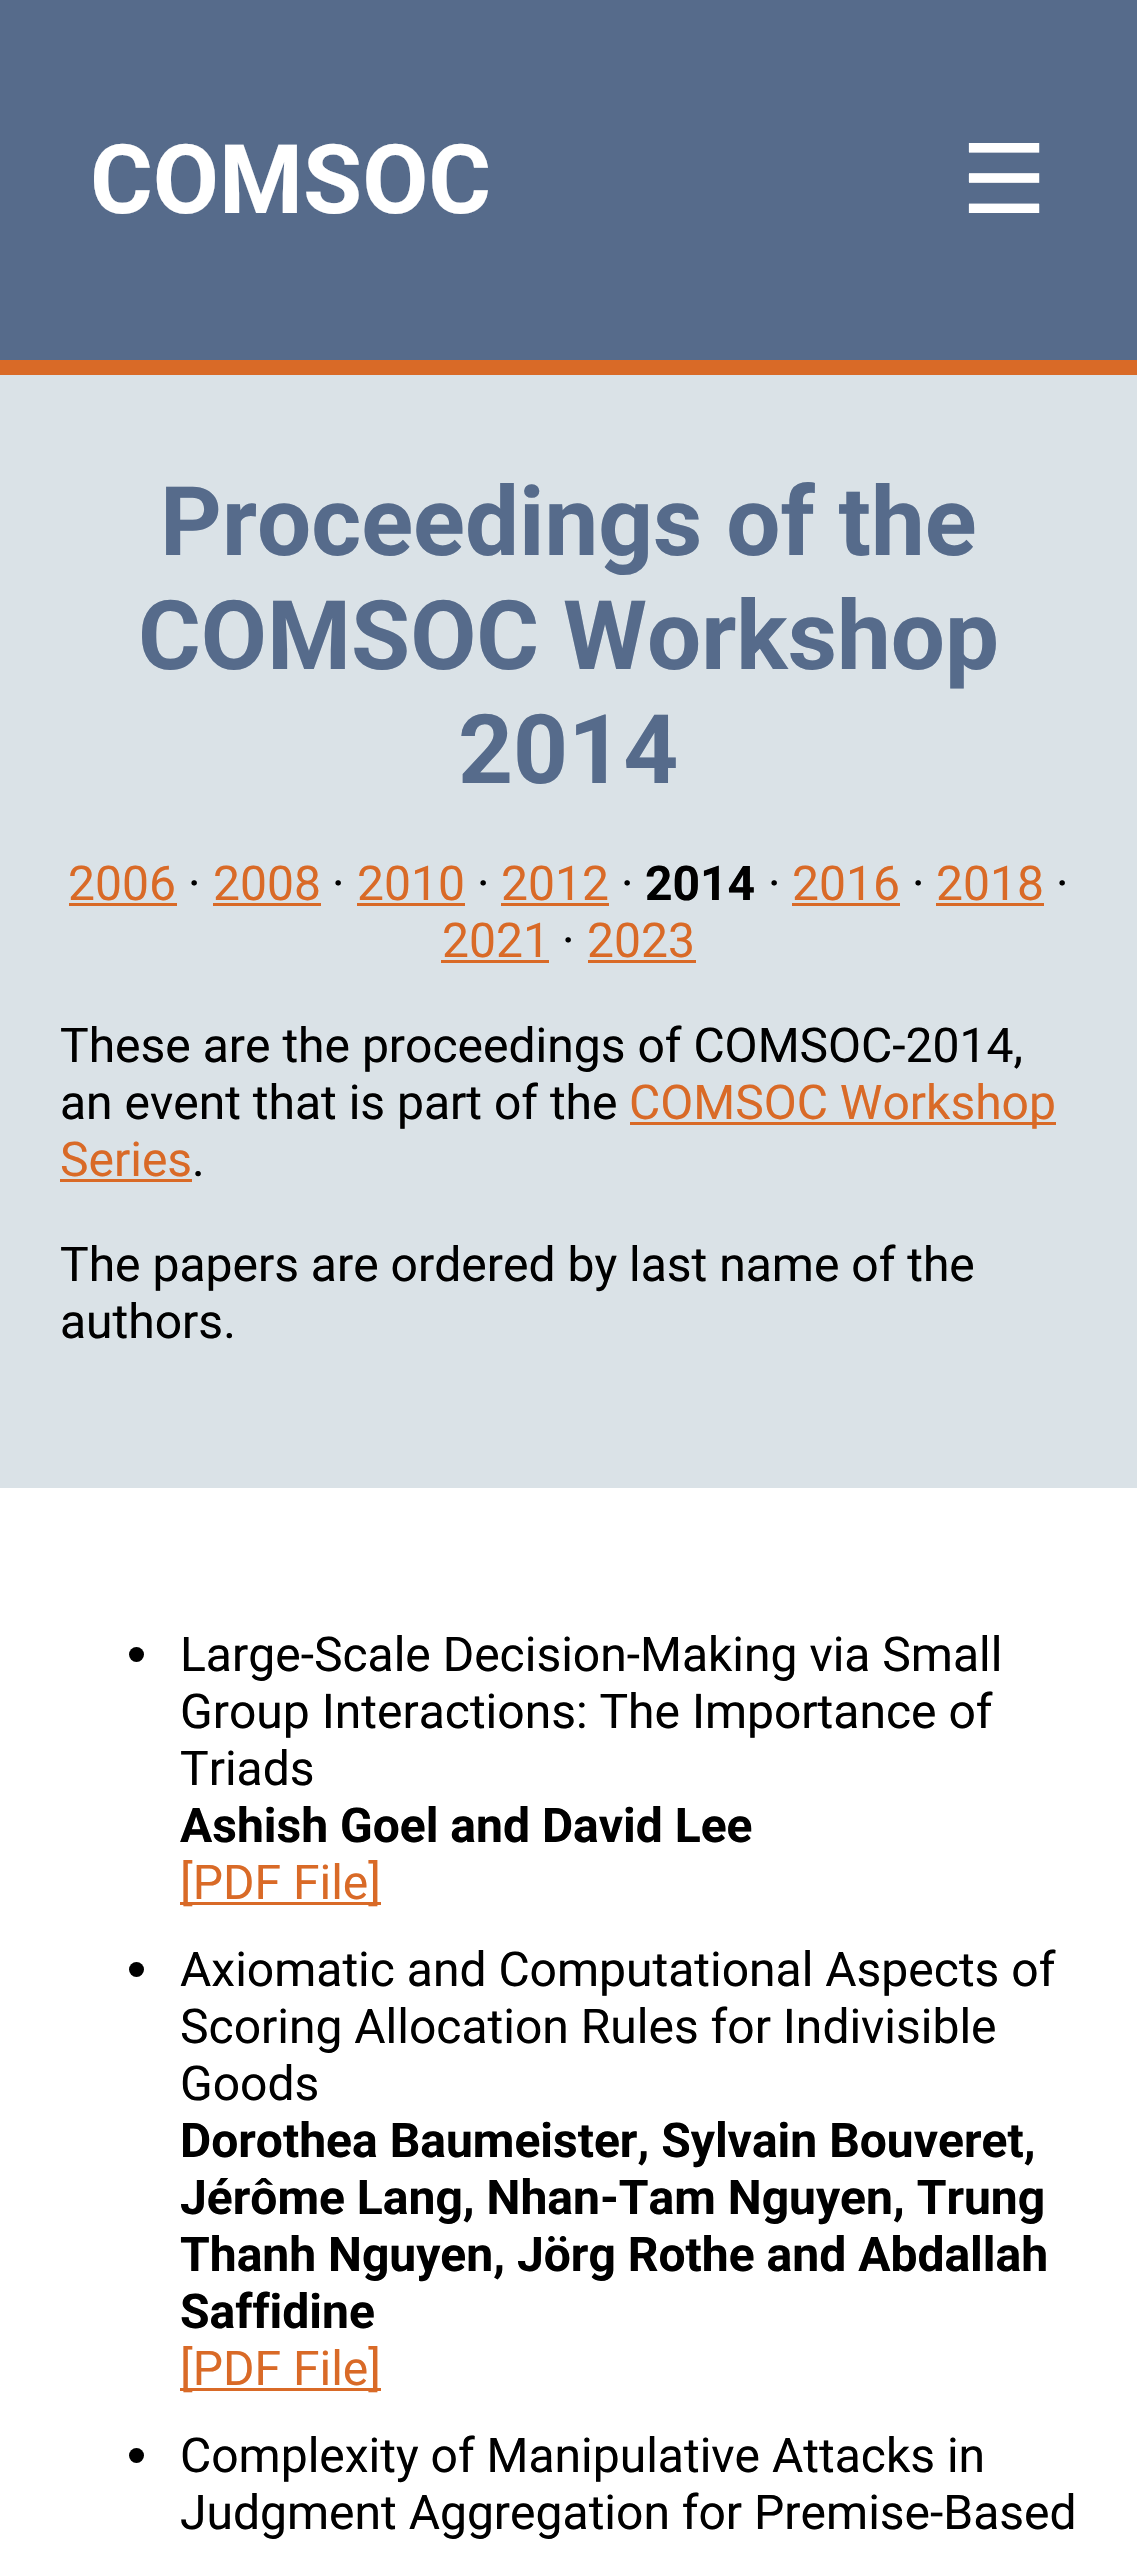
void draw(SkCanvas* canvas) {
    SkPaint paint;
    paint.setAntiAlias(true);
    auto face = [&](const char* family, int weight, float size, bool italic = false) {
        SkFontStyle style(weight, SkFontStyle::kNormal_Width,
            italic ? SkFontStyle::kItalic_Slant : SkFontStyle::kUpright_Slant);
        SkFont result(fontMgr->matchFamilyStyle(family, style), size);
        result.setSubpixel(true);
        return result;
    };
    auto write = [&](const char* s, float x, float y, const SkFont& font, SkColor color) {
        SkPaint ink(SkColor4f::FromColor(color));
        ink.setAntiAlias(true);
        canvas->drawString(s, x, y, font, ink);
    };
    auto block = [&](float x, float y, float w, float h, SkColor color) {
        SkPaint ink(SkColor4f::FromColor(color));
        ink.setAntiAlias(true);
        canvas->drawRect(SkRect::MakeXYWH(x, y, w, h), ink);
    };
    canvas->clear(SK_ColorWHITE);
    block(0, 0, 1137, 360, SkColorSetRGB(86, 107, 139));
    block(0, 360, 1137, 15, SkColorSetRGB(217, 106, 39));
    auto kFont1 = face("Roboto", 700, 96);
    write("COMSOC", 90, 213, kFont1, SK_ColorWHITE);
    auto kFont2 = face("DejaVu Sans", 400, 96);
    write("☰", 961, 213, kFont2, SK_ColorWHITE);
    block(0, 375, 1137, 1113, SkColorSetRGB(218, 226, 231));
    write("Proceedings of the", 160, 555, kFont1, SkColorSetRGB(86, 107, 139));
    write("COMSOC Workshop", 138, 669, kFont1, SkColorSetRGB(86, 107, 139));
    write("2014", 458, 783, kFont1, SkColorSetRGB(86, 107, 139));
    auto kFont3 = face("Roboto", 400, 48);
    write("2006", 68, 900, kFont3, SkColorSetRGB(217, 106, 39));
    block(69, 903, 108, 3, SkColorSetRGB(217, 106, 39));
    write("·", 188, 900, kFont3, SK_ColorBLACK);
    write("2008", 213, 900, kFont3, SkColorSetRGB(217, 106, 39));
    block(213, 903, 108, 3, SkColorSetRGB(217, 106, 39));
    write("·", 332, 900, kFont3, SK_ColorBLACK);
    write("2010", 357, 900, kFont3, SkColorSetRGB(217, 106, 39));
    block(357, 903, 108, 3, SkColorSetRGB(217, 106, 39));
    write("·", 477, 900, kFont3, SK_ColorBLACK);
    write("2012", 501, 900, kFont3, SkColorSetRGB(217, 106, 39));
    block(501, 903, 108, 3, SkColorSetRGB(217, 106, 39));
    write("·", 621, 900, kFont3, SK_ColorBLACK);
    auto kFont4 = face("Roboto", 700, 48);
    write("2014", 645, 900, kFont4, SK_ColorBLACK);
    write("·", 768, 900, kFont3, SK_ColorBLACK);
    write("2016", 792, 900, kFont3, SkColorSetRGB(217, 106, 39));
    block(792, 903, 108, 3, SkColorSetRGB(217, 106, 39));
    write("·", 912, 900, kFont3, SK_ColorBLACK);
    write("2018", 936, 900, kFont3, SkColorSetRGB(217, 106, 39));
    block(936, 903, 108, 3, SkColorSetRGB(217, 106, 39));
    write("·", 1056, 900, kFont3, SK_ColorBLACK);
    write("2021", 442, 957, kFont3, SkColorSetRGB(217, 106, 39));
    block(441, 960, 108, 3, SkColorSetRGB(217, 106, 39));
    write("·", 562, 957, kFont3, SK_ColorBLACK);
    write("2023", 587, 957, kFont3, SkColorSetRGB(217, 106, 39));
    block(588, 960, 108, 3, SkColorSetRGB(217, 106, 39));
    write("These are the proceedings of COMSOC-2014,", 60, 1062, kFont3, SK_ColorBLACK);
    write("an event that is part of the", 60, 1119, kFont3, SK_ColorBLACK);
    block(630, 1122, 426, 3, SkColorSetRGB(217, 106, 39));
    write("COMSOC Workshop", 629, 1119, kFont3, SkColorSetRGB(217, 106, 39));
    write("Series", 60, 1176, kFont3, SkColorSetRGB(217, 106, 39));
    block(60, 1179, 132, 3, SkColorSetRGB(217, 106, 39));
    write(".", 192, 1176, kFont3, SK_ColorBLACK);
    write("The papers are ordered by last name of the", 60, 1281, kFont3, SK_ColorBLACK);
    write("authors.", 60, 1338, kFont3, SK_ColorBLACK);
    paint.setColor(SK_ColorBLACK);
    canvas->drawCircle(136.5f, 1654.5f, 7.5f, paint);
    write("Large-Scale Decision-Making via Small", 180, 1671, kFont3, SK_ColorBLACK);
    write("Group Interactions: The Importance of", 180, 1728, kFont3, SK_ColorBLACK);
    write("Triads", 180, 1785, kFont3, SK_ColorBLACK);
    write("Ashish Goel and David Lee", 180, 1842, kFont4, SK_ColorBLACK);
    block(180, 1902, 201, 3, SkColorSetRGB(217, 106, 39));
    write("[PDF File]", 180, 1899, kFont3, SkColorSetRGB(217, 106, 39));
    canvas->drawCircle(136.5f, 1969.5f, 7.5f, paint);
    write("Axiomatic and Computational Aspects of", 180, 1986, kFont3, SK_ColorBLACK);
    write("Scoring Allocation Rules for Indivisible", 180, 2043, kFont3, SK_ColorBLACK);
    write("Goods", 180, 2100, kFont3, SK_ColorBLACK);
    write("Dorothea Baumeister, Sylvain Bouveret,", 180, 2157, kFont4, SK_ColorBLACK);
    write("Jérôme Lang, Nhan-Tam Nguyen, Trung", 180, 2214, kFont4, SK_ColorBLACK);
    write("Thanh Nguyen, Jörg Rothe and Abdallah", 180, 2271, kFont4, SK_ColorBLACK);
    write("Saffidine", 180, 2328, kFont4, SK_ColorBLACK);
    block(180, 2388, 201, 3, SkColorSetRGB(217, 106, 39));
    write("[PDF File]", 180, 2385, kFont3, SkColorSetRGB(217, 106, 39));
    canvas->drawCircle(136.5f, 2455.5f, 7.5f, paint);
    write("Complexity of Manipulative Attacks in", 180, 2472, kFont3, SK_ColorBLACK);
    write("Judgment Aggregation for Premise-Based", 180, 2529, kFont3, SK_ColorBLACK);
}
